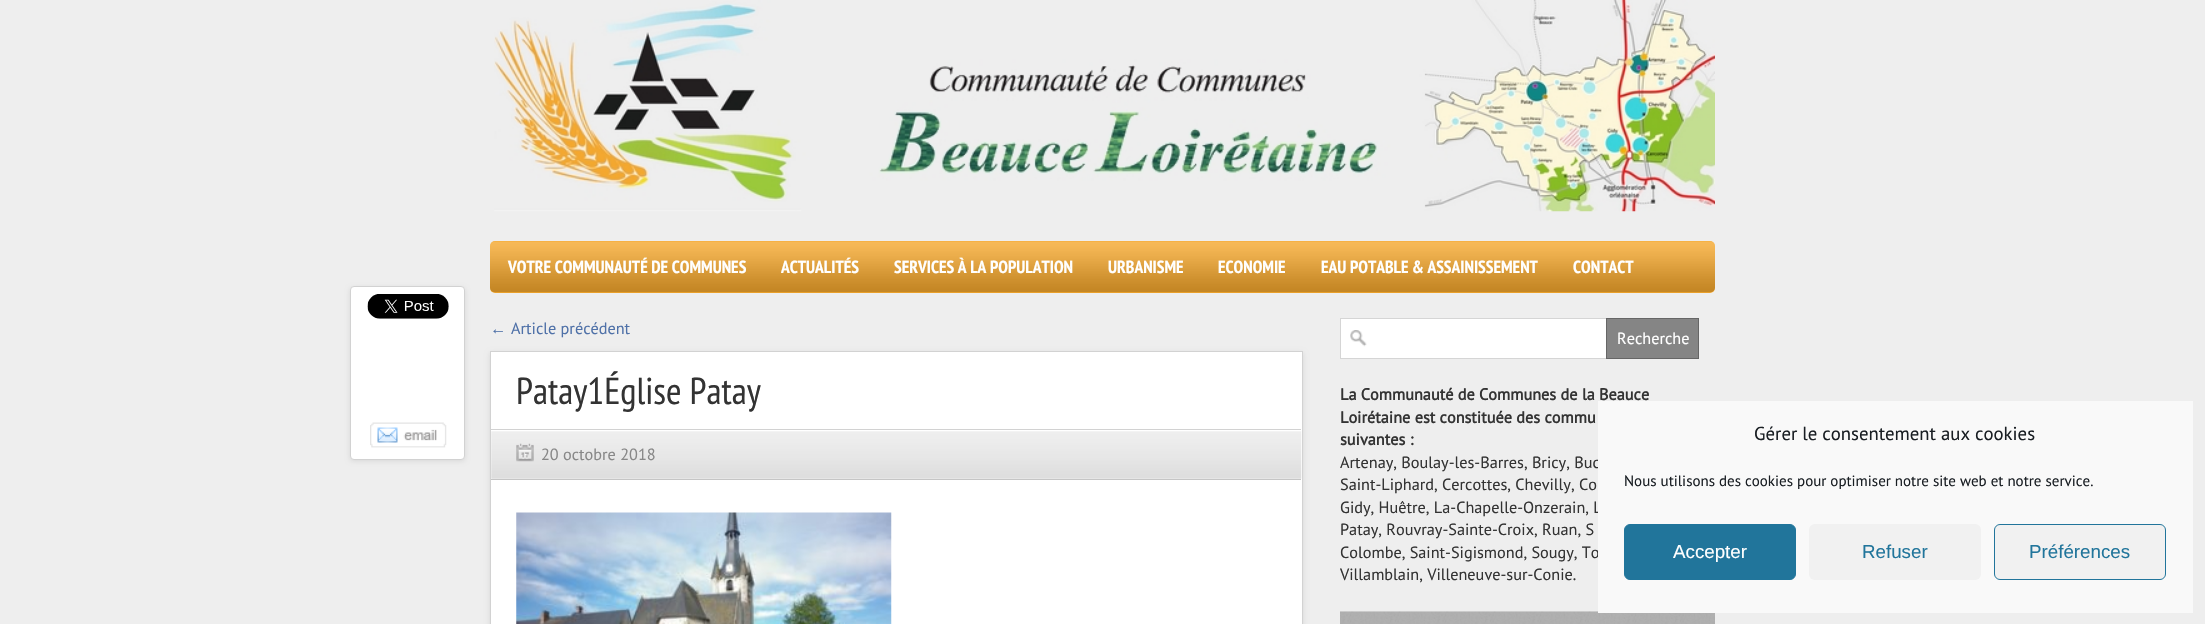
void draw(SkCanvas* canvas) {
    SkPaint paint;
    paint.setAntiAlias(true);
    auto face = [&](const char* family, int weight, float size, bool italic = false) {
        SkFontStyle style(weight, SkFontStyle::kNormal_Width,
            italic ? SkFontStyle::kItalic_Slant : SkFontStyle::kUpright_Slant);
        SkFont result(fontMgr->matchFamilyStyle(family, style), size);
        result.setSubpixel(true);
        return result;
    };
    auto write = [&](const char* s, float x, float y, const SkFont& font, SkColor color) {
        SkPaint ink(SkColor4f::FromColor(color));
        ink.setAntiAlias(true);
        canvas->drawString(s, x, y, font, ink);
    };
    auto block = [&](float x, float y, float w, float h, SkColor color) {
        SkPaint ink(SkColor4f::FromColor(color));
        ink.setAntiAlias(true);
        canvas->drawRect(SkRect::MakeXYWH(x, y, w, h), ink);
    };
    auto card = [&](float x, float y, float w, float h, float radius, SkColor color) {
        SkPaint ink(SkColor4f::FromColor(color));
        ink.setAntiAlias(true);
        canvas->drawRoundRect(SkRect::MakeXYWH(x, y, w, h), radius, radius, ink);
    };
    auto paste = [&](const char* path, float x, float y, float w, float h) {
        auto image = SkImages::DeferredFromEncodedData(SkData::MakeFromFileName(path));
        canvas->drawImageRect(image, SkRect::MakeXYWH(x, y, w, h), SkSamplingOptions());
    };
    canvas->clear(SkColorSetRGB(238, 238, 238));
    paste("pic1.png", 494, 0, 1221, 212);
    card(490, 241, 1225, 52, 5, SkColorSetRGB(245, 168, 44));
    paste("pic2.png", 490, 241, 1225, 52);
    auto kFont1 = face("PT Sans Narrow", 700, 17.5f);
    write("VOTRE COMMUNAUTÉ DE COMMUNES", 508, 273, kFont1, SK_ColorWHITE);
    write("ACTUALITÉS", 781, 273, kFont1, SK_ColorWHITE);
    write("SERVICES À LA POPULATION", 894, 273, kFont1, SK_ColorWHITE);
    write("URBANISME", 1108, 273, kFont1, SK_ColorWHITE);
    write("ECONOMIE", 1218, 273, kFont1, SK_ColorWHITE);
    write("EAU POTABLE & ASSAINISSEMENT", 1321, 273, kFont1, SK_ColorWHITE);
    write("CONTACT", 1573, 273, kFont1, SK_ColorWHITE);
    auto kFont2 = face("Liberation Serif", 400, 16.25f);
    write("←", 490, 334, kFont2, SkColorSetRGB(79, 113, 168));
    auto kFont3 = face("PT Sans", 400, 16.25f);
    write("Article précédent", 511, 334, kFont3, SkColorSetRGB(79, 113, 168));
    paint.setColor(SkColorSetARGB(26, 0, 0, 0));
    paint.setMaskFilter(SkMaskFilter::MakeBlur(kNormal_SkBlurStyle, 2.5f));
    canvas->drawRect(SkRect::MakeXYWH(490, 353, 813, 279), paint);
    paint.setMaskFilter(nullptr);
    paint.setColor(SK_ColorWHITE);
    canvas->drawRect(SkRect::MakeXYWH(490.5f, 351.5f, 812, 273), paint);
    paint.setStyle(SkPaint::kStroke_Style);
    paint.setStrokeWidth(1);
    paint.setColor(SkColorSetRGB(210, 210, 210));
    canvas->drawRect(SkRect::MakeXYWH(490.5f, 351.5f, 812, 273), paint);
    paint.setStyle(SkPaint::kFill_Style);
    paint.setColor(SkColorSetARGB(26, 0, 0, 0));
    paint.setMaskFilter(SkMaskFilter::MakeBlur(kNormal_SkBlurStyle, 2.5f));
    canvas->drawRoundRect(SkRect::MakeXYWH(350, 288, 115, 173), 4, 4, paint);
    paint.setMaskFilter(nullptr);
    paint.setColor(SK_ColorWHITE);
    canvas->drawRoundRect(SkRect::MakeXYWH(350.5f, 286.5f, 114, 173), 3.5f, 3.5f, paint);
    paint.setStyle(SkPaint::kStroke_Style);
    paint.setColor(SkColorSetRGB(210, 210, 210));
    canvas->drawRoundRect(SkRect::MakeXYWH(350.5f, 286.5f, 114, 173), 3.5f, 3.5f, paint);
    paste("pic3.png", 367, 294, 82, 25);
    paste("pic4.png", 370, 422, 77, 26);
    auto kFont4 = face("PT Sans Narrow", 400, 37.5f);
    write("Patay1Église Patay", 516, 404, kFont4, SkColorSetRGB(51, 51, 51));
    paste("pic5.png", 491, 431, 811, 48);
    block(491, 429, 810, 1, SkColorSetRGB(210, 210, 210));
    block(491, 479, 810, 1, SkColorSetRGB(197, 197, 197));
    paste("pic6.png", 516, 443, 18, 19);
    write("20 octobre 2018", 541, 460, kFont3, SkColorSetRGB(136, 136, 136));
    paste("pic7.png", 516, 512, 376, 112);
    block(1341, 319, 265, 39, SK_ColorWHITE);
    paste("pic8.png", 1350, 330, 17, 17);
    paint.setColor(SkColorSetRGB(213, 213, 213));
    canvas->drawRect(SkRect::MakeXYWH(1340.5f, 318.5f, 267, 40), paint);
    paint.setStyle(SkPaint::kFill_Style);
    paint.setColor(SkColorSetRGB(133, 133, 133));
    canvas->drawRect(SkRect::MakeXYWH(1606.5f, 318.5f, 92, 40), paint);
    paint.setStyle(SkPaint::kStroke_Style);
    paint.setColor(SkColorSetRGB(102, 102, 102));
    canvas->drawRect(SkRect::MakeXYWH(1606.5f, 318.5f, 92, 40), paint);
    write("Recherche", 1617, 344, kFont3, SK_ColorWHITE);
    auto kFont5 = face("PT Sans", 700, 16.25f);
    write("La Communauté de Communes de la Beauce", 1340, 400, kFont5, SkColorSetRGB(51, 51, 51));
    write("Loirétaine est constituée des commu", 1340, 423, kFont5, SkColorSetRGB(51, 51, 51));
    write("suivantes :", 1340, 445, kFont5, SkColorSetRGB(51, 51, 51));
    write("Artenay, Boulay-les-Barres, Bricy, Buc", 1340, 468, kFont3, SkColorSetRGB(51, 51, 51));
    write("Saint-Liphard, Cercottes, Chevilly, Co", 1340, 490, kFont3, SkColorSetRGB(51, 51, 51));
    write("Gidy, Huêtre, La-Chapelle-Onzerain, L", 1340, 513, kFont3, SkColorSetRGB(51, 51, 51));
    write("Patay, Rouvray-Sainte-Croix, Ruan, S", 1340, 535, kFont3, SkColorSetRGB(51, 51, 51));
    write("Colombe, Saint-Sigismond, Sougy, To", 1340, 558, kFont3, SkColorSetRGB(51, 51, 51));
    write("Villamblain, Villeneuve-sur-Conie.", 1340, 580, kFont3, SkColorSetRGB(51, 51, 51));
    paste("pic9.png", 1340, 611, 375, 13);
    block(1598, 401, 595, 212, SkColorSetRGB(249, 249, 249));
    auto kFont6 = face("PT Sans", 400, 18.75f);
    write("Gérer le consentement aux cookies", 1754, 440, kFont6, SkColorSetRGB(25, 30, 35));
    auto kFont7 = face("PT Sans", 400, 15);
    write("Nous utilisons des cookies pour optimiser notre site web et notre service.", 1624, 486, kFont7, SkColorSetRGB(25, 30, 35));
    paint.setStyle(SkPaint::kFill_Style);
    paint.setColor(SkColorSetRGB(33, 117, 155));
    canvas->drawRoundRect(SkRect::MakeXYWH(1624.5f, 524.5f, 171, 55), 5.5f, 5.5f, paint);
    paint.setStyle(SkPaint::kStroke_Style);
    canvas->drawRoundRect(SkRect::MakeXYWH(1624.5f, 524.5f, 171, 55), 5.5f, 5.5f, paint);
    auto kFont8 = face("Liberation Sans", 400, 18.75f);
    write("Accepter", 1673, 558, kFont8, SK_ColorWHITE);
    card(1809, 524, 172, 56, 6, SkColorSetRGB(241, 241, 241));
    write("Refuser", 1862, 558, kFont8, SkColorSetRGB(33, 117, 155));
    paint.setStyle(SkPaint::kFill_Style);
    paint.setColor(SkColorSetRGB(241, 241, 241));
    canvas->drawRoundRect(SkRect::MakeXYWH(1994.5f, 524.5f, 171, 55), 5.5f, 5.5f, paint);
    paint.setStyle(SkPaint::kStroke_Style);
    paint.setColor(SkColorSetRGB(33, 117, 155));
    canvas->drawRoundRect(SkRect::MakeXYWH(1994.5f, 524.5f, 171, 55), 5.5f, 5.5f, paint);
    write("Préférences", 2029, 558, kFont8, SkColorSetRGB(33, 117, 155));
}
